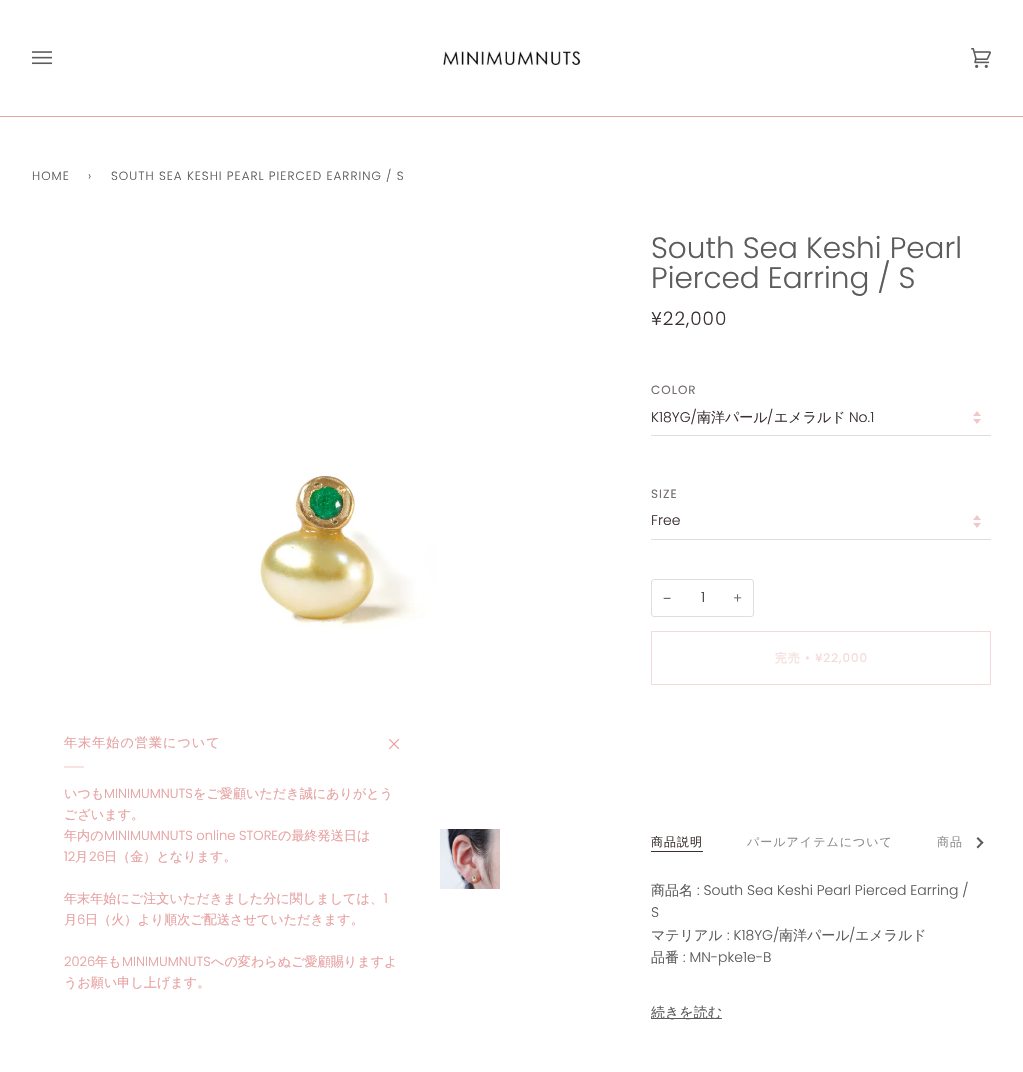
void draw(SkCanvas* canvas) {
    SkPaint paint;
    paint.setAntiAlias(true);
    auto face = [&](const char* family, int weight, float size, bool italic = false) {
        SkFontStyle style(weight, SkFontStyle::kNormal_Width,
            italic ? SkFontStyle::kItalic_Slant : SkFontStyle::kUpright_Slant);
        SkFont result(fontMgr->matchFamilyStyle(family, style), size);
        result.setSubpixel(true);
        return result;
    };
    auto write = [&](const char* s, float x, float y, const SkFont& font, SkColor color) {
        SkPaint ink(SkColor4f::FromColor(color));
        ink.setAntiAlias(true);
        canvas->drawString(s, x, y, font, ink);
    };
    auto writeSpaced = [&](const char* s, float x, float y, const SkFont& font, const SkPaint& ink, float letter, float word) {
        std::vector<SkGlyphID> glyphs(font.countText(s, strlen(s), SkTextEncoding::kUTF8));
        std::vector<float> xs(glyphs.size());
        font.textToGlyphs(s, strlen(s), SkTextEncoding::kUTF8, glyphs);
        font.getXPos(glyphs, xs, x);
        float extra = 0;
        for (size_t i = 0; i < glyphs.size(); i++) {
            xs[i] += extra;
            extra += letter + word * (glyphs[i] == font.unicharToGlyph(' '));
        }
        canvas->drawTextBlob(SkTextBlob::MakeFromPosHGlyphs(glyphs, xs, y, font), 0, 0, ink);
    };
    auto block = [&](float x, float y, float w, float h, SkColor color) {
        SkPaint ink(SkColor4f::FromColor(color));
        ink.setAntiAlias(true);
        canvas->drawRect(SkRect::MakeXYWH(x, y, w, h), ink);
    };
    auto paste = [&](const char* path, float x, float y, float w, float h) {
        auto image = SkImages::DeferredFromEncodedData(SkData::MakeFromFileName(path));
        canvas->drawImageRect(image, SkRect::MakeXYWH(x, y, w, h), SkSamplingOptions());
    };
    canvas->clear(SK_ColorWHITE);
    block(0, 116, 1023, 1, SkColorSetRGB(231, 162, 162));
    paste("pic1.png", 32, 51, 20, 14);
    paste("pic2.png", 443, 51, 138, 15);
    paste("pic3.png", 971, 48, 20, 20);
    auto kFont1 = face("Poppins", 300, 12);
    paint.setColor(SkColorSetRGB(92, 92, 92));
    writeSpaced("HOME", 32, 180, kFont1, paint, 1, 0);
    writeSpaced("›", 88, 180, kFont1, paint, 1, 0);
    writeSpaced("SOUTH SEA KESHI PEARL PIERCED EARRING / S", 111, 180, kFont1, paint, 1, 0);
    paste("pic4.png", 258, 473, 178, 156);
    paste("pic5.png", 440, 829, 60, 60);
    auto kFont2 = face("Poppins", 300, 29.5f);
    write("South Sea Keshi Pearl", 651, 258, kFont2, SkColorSetRGB(92, 92, 92));
    write("Pierced Earring / S", 651, 288, kFont2, SkColorSetRGB(92, 92, 92));
    auto kFont3 = face("Poppins", 300, 18.5f);
    paint.setColor(SkColorSetRGB(59, 48, 48));
    writeSpaced("¥22,000", 651, 325, kFont3, paint, 1, 0);
    auto kFont4 = face("Poppins", 400, 12);
    paint.setColor(SkColorSetRGB(118, 110, 110));
    writeSpaced("COLOR", 651, 394, kFont4, paint, 1, 0);
    paste("pic6.png", 973, 411, 8, 13);
    block(651, 435, 340, 1, SkColorSetRGB(222, 222, 222));
    auto kFont5 = face("Poppins", 300, 14);
    write("K18YG/", 651, 422, kFont5, SkColorSetRGB(59, 48, 48));
    auto kFont6 = face("WenQuanYi Zen Hei", 500, 14);
    write("南洋パール", 697, 422, kFont6, SkColorSetRGB(59, 48, 48));
    write("/", 767, 422, kFont5, SkColorSetRGB(59, 48, 48));
    write("エメラルド", 774, 422, kFont6, SkColorSetRGB(59, 48, 48));
    write("No.1", 849, 422, kFont5, SkColorSetRGB(59, 48, 48));
    writeSpaced("SIZE", 651, 498, kFont4, paint, 1, 0);
    paste("pic6.png", 973, 515, 8, 13);
    block(651, 539, 340, 1, SkColorSetRGB(222, 222, 222));
    write("Free", 651, 525, kFont5, SkColorSetRGB(59, 48, 48));
    paint.setStyle(SkPaint::kStroke_Style);
    paint.setStrokeWidth(1);
    paint.setColor(SkColorSetRGB(222, 222, 222));
    canvas->drawRoundRect(SkRect::MakeXYWH(651.5f, 579.5f, 102, 37), 2.5f, 2.5f, paint);
    auto kFont7 = face("Liberation Sans", 400, 14);
    write("−", 663, 603, kFont7, SkColorSetRGB(92, 92, 92));
    write("1", 701, 602, kFont5, SkColorSetRGB(59, 48, 48));
    write("+", 733, 603, kFont5, SkColorSetRGB(92, 92, 92));
    paint.setColor(SkColorSetRGB(245, 218, 218));
    canvas->drawRect(SkRect::MakeXYWH(651.5f, 631.5f, 339, 53), paint);
    auto kFont8 = face("WenQuanYi Zen Hei", 500, 12);
    paint.setStyle(SkPaint::kFill_Style);
    writeSpaced("完売", 775, 662, kFont8, paint, 1, 0);
    writeSpaced("• ¥22,000", 805, 662, kFont4, paint, 1, 0);
    block(651, 851, 52, 1, SkColorSetRGB(59, 48, 48));
    paint.setColor(SkColorSetRGB(59, 48, 48));
    writeSpaced("商品説明", 651, 846, kFont8, paint, 1, 0);
    paint.setColor(SkColorSetRGB(141, 141, 141));
    writeSpaced("パールアイテムについて", 747, 846, kFont8, paint, 1, 0);
    writeSpaced("商品", 937, 846, kFont8, paint, 1, 0);
    paint.setColor(SkColorSetRGB(92, 92, 92));
    canvas->drawPath(SkPathBuilder().moveTo(982, 844).lineTo(976.5f, 838.5f).lineTo(978, 837).lineTo(983.5f, 842.5f).close().detach(), paint);
    canvas->drawPath(SkPathBuilder().moveTo(978, 848.5f).lineTo(976.5f, 847).lineTo(982, 841.5f).lineTo(983.5f, 842.5f).close().detach(), paint);
    write("商品名", 651, 895, kFont6, SkColorSetRGB(92, 92, 92));
    write(": South Sea Keshi Pearl Pierced Earring /", 697, 895, kFont5, SkColorSetRGB(92, 92, 92));
    write("S", 651, 917, kFont5, SkColorSetRGB(92, 92, 92));
    write("マテリアル", 651, 940, kFont6, SkColorSetRGB(92, 92, 92));
    write(": K18YG/", 727, 940, kFont5, SkColorSetRGB(92, 92, 92));
    write("南洋パール", 779, 940, kFont6, SkColorSetRGB(92, 92, 92));
    write("/", 849, 940, kFont5, SkColorSetRGB(92, 92, 92));
    write("エメラルド", 855, 940, kFont6, SkColorSetRGB(92, 92, 92));
    write("品番", 651, 962, kFont6, SkColorSetRGB(92, 92, 92));
    write(": MN-pke1e-B", 683, 962, kFont5, SkColorSetRGB(92, 92, 92));
    block(651, 1018, 71, 1, SkColorSetRGB(92, 92, 92));
    write("続きを読む", 651, 1017, kFont6, SkColorSetRGB(92, 92, 92));
    auto kFont9 = face("WenQuanYi Zen Hei", 500, 13.1f);
    paint.setColor(SkColorSetRGB(231, 162, 162));
    writeSpaced("年末年始の営業について", 64, 747, kFont9, paint, 1, 0);
    paste("pic7.png", 389, 739, 11, 11);
    block(64, 766, 20, 2, SkColorSetRGB(248, 227, 227));
    write("いつも", 64, 798, kFont9, SkColorSetRGB(231, 162, 162));
    auto kFont10 = face("Poppins", 300, 13.1f);
    write("MINIMUMNUTS", 104, 798, kFont10, SkColorSetRGB(231, 162, 162));
    write("をご愛顧いただき誠にありがとう", 193, 798, kFont9, SkColorSetRGB(231, 162, 162));
    write("ございます。", 64, 819, kFont9, SkColorSetRGB(231, 162, 162));
    write("年内の", 64, 840, kFont9, SkColorSetRGB(231, 162, 162));
    write("MINIMUMNUTS online STORE", 104, 840, kFont10, SkColorSetRGB(231, 162, 162));
    write("の最終発送日は", 278, 840, kFont9, SkColorSetRGB(231, 162, 162));
    write("12", 64, 861, kFont10, SkColorSetRGB(231, 162, 162));
    write("月", 75, 861, kFont9, SkColorSetRGB(231, 162, 162));
    write("26", 89, 861, kFont10, SkColorSetRGB(231, 162, 162));
    write("日（金）となります。", 104, 861, kFont9, SkColorSetRGB(231, 162, 162));
    write("年末年始にご注文いただきました分に関しましては、", 64, 903, kFont9, SkColorSetRGB(231, 162, 162));
    write("1", 384, 903, kFont10, SkColorSetRGB(231, 162, 162));
    write("月", 64, 924, kFont9, SkColorSetRGB(231, 162, 162));
    write("6", 77, 924, kFont10, SkColorSetRGB(231, 162, 162));
    write("日（火）より順次ご配送させていただきます。", 85, 924, kFont9, SkColorSetRGB(231, 162, 162));
    write("2026", 64, 966, kFont10, SkColorSetRGB(231, 162, 162));
    write("年も", 95, 966, kFont9, SkColorSetRGB(231, 162, 162));
    write("MINIMUMNUTS", 122, 966, kFont10, SkColorSetRGB(231, 162, 162));
    write("への変わらぬご愛顧賜りますよ", 211, 966, kFont9, SkColorSetRGB(231, 162, 162));
    write("うお願い申し上げます。", 64, 987, kFont9, SkColorSetRGB(231, 162, 162));
}
